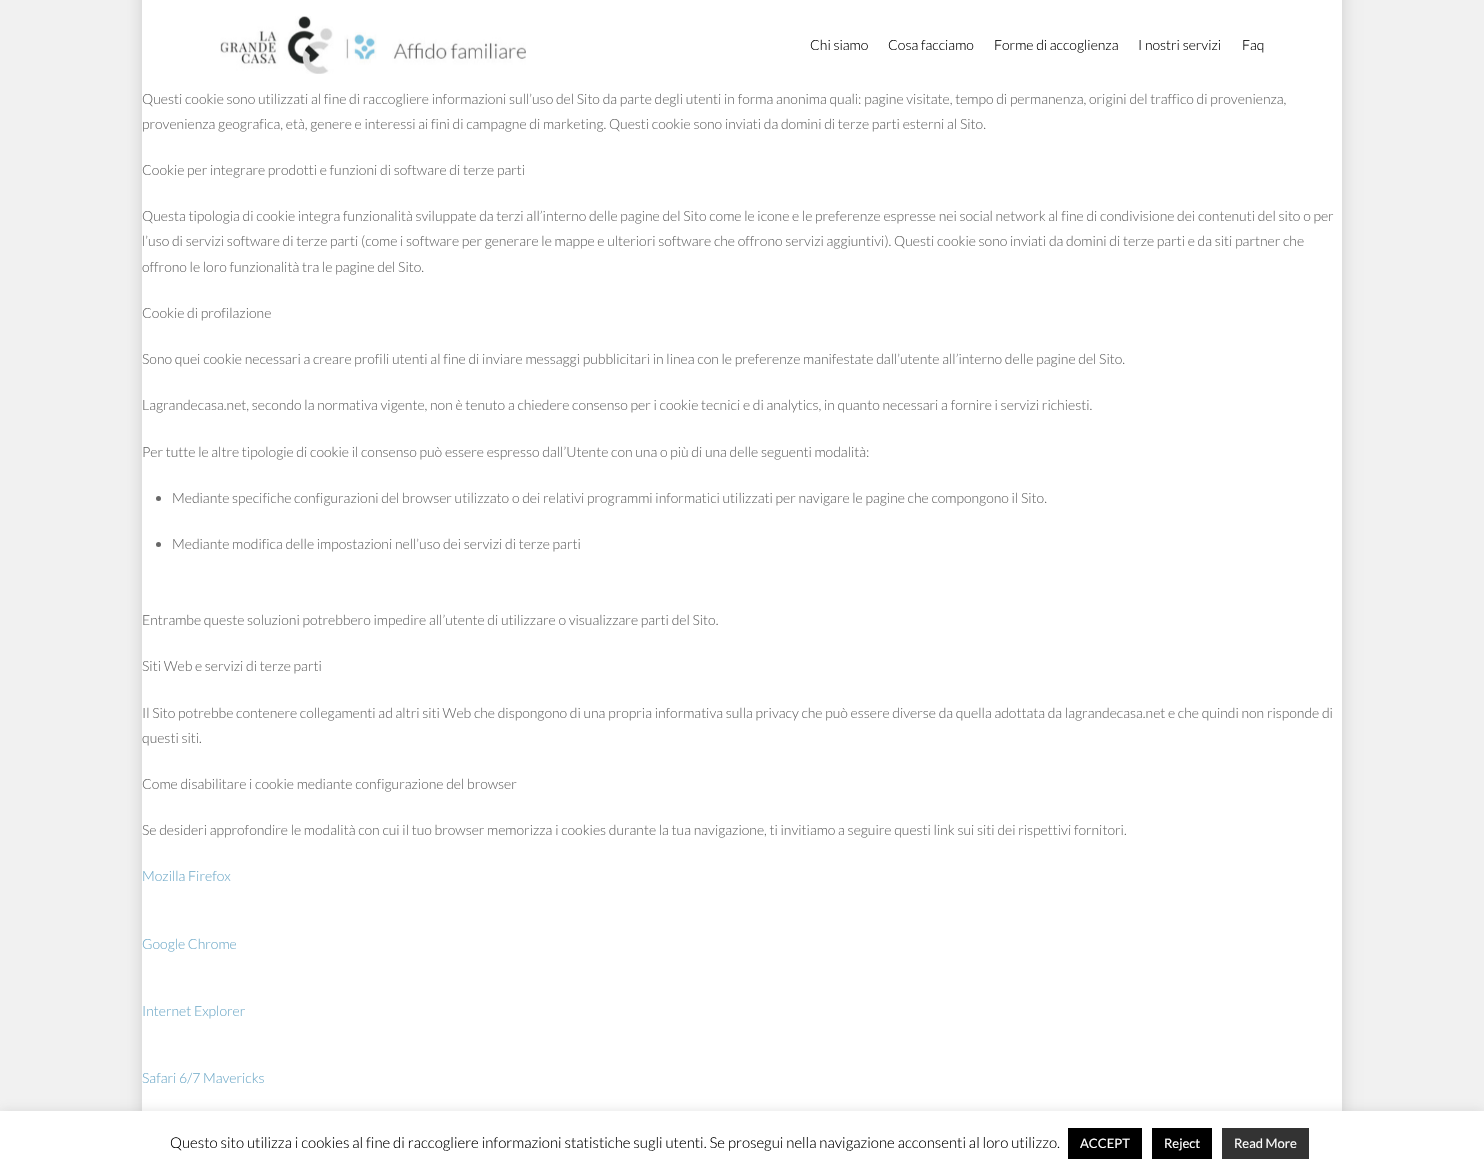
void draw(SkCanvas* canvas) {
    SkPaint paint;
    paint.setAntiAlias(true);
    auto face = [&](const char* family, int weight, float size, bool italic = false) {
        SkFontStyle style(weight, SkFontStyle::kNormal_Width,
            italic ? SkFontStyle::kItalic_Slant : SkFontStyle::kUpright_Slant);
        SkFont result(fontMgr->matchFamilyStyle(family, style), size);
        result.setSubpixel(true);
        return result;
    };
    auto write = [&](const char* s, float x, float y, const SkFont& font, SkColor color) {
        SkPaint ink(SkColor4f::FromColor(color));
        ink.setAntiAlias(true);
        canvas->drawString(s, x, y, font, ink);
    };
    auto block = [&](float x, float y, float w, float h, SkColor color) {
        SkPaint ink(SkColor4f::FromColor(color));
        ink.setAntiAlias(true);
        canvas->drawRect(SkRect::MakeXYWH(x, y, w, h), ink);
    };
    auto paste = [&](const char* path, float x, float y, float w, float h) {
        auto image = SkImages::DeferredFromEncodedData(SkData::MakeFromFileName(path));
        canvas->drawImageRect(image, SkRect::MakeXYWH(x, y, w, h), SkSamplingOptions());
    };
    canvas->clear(SkColorSetRGB(241, 241, 241));
    paint.setColor(SkColorSetARGB(38, 0, 0, 0));
    paint.setMaskFilter(SkMaskFilter::MakeBlur(kNormal_SkBlurStyle, 7.5f));
    canvas->drawRect(SkRect::MakeXYWH(142, -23, 1200, 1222), paint);
    paint.setMaskFilter(nullptr);
    block(142, 0, 1200, 1111, SK_ColorWHITE);
    paste("pic1.png", 220, 16, 306, 58);
    auto kFont1 = face("Lato", 300, 14);
    write("Chi siamo", 810, 50, kFont1, SK_ColorBLACK);
    write("Cosa facciamo", 888, 50, kFont1, SK_ColorBLACK);
    write("Forme di accoglienza", 994, 50, kFont1, SK_ColorBLACK);
    write("I nostri servizi", 1138, 50, kFont1, SK_ColorBLACK);
    write("Faq", 1242, 50, kFont1, SK_ColorBLACK);
    write("Questi cookie sono utilizzati al fine di raccogliere informazioni sull’uso del Sito da parte degli utenti in forma anonima quali: pagine visitate, tempo di permanenza, origini del traffico di provenienza,", 142, 104, kFont1, SkColorSetRGB(103, 103, 103));
    write("provenienza geografica, età, genere e interessi ai fini di campagne di marketing. Questi cookie sono inviati da domini di terze parti esterni al Sito.", 142, 129, kFont1, SkColorSetRGB(103, 103, 103));
    write("Cookie per integrare prodotti e funzioni di software di terze parti", 142, 175, kFont1, SkColorSetRGB(103, 103, 103));
    write("Questa tipologia di cookie integra funzionalità sviluppate da terzi all’interno delle pagine del Sito come le icone e le preferenze espresse nei social network al fine di condivisione dei contenuti del sito o per", 142, 221, kFont1, SkColorSetRGB(103, 103, 103));
    write("l’uso di servizi software di terze parti (come i software per generare le mappe e ulteriori software che offrono servizi aggiuntivi). Questi cookie sono inviati da domini di terze parti e da siti partner che", 142, 246, kFont1, SkColorSetRGB(103, 103, 103));
    write("offrono le loro funzionalità tra le pagine del Sito.", 142, 272, kFont1, SkColorSetRGB(103, 103, 103));
    write("Cookie di profilazione", 142, 318, kFont1, SkColorSetRGB(103, 103, 103));
    write("Sono quei cookie necessari a creare profili utenti al fine di inviare messaggi pubblicitari in linea con le preferenze manifestate dall’utente all’interno delle pagine del Sito.", 142, 364, kFont1, SkColorSetRGB(103, 103, 103));
    write("Lagrandecasa.net, secondo la normativa vigente, non è tenuto a chiedere consenso per i cookie tecnici e di analytics, in quanto necessari a fornire i servizi richiesti.", 142, 410, kFont1, SkColorSetRGB(103, 103, 103));
    write("Per tutte le altre tipologie di cookie il consenso può essere espresso dall’Utente con una o più di una delle seguenti modalità:", 142, 457, kFont1, SkColorSetRGB(103, 103, 103));
    paint.setColor(SkColorSetRGB(103, 103, 103));
    canvas->drawCircle(158.5f, 498.5f, 2.5f, paint);
    write("Mediante specifiche configurazioni del browser utilizzato o dei relativi programmi informatici utilizzati per navigare le pagine che compongono il Sito.", 172, 503, kFont1, SkColorSetRGB(103, 103, 103));
    canvas->drawCircle(158.5f, 544.5f, 2.5f, paint);
    write("Mediante modifica delle impostazioni nell’uso dei servizi di terze parti", 172, 549, kFont1, SkColorSetRGB(103, 103, 103));
    write("Entrambe queste soluzioni potrebbero impedire all’utente di utilizzare o visualizzare parti del Sito.", 142, 625, kFont1, SkColorSetRGB(103, 103, 103));
    write("Siti Web e servizi di terze parti", 142, 671, kFont1, SkColorSetRGB(103, 103, 103));
    write("Il Sito potrebbe contenere collegamenti ad altri siti Web che dispongono di una propria informativa sulla privacy che può essere diverse da quella adottata da lagrandecasa.net e che quindi non risponde di", 142, 718, kFont1, SkColorSetRGB(103, 103, 103));
    write("questi siti.", 142, 743, kFont1, SkColorSetRGB(103, 103, 103));
    write("Come disabilitare i cookie mediante configurazione del browser", 142, 789, kFont1, SkColorSetRGB(103, 103, 103));
    write("Se desideri approfondire le modalità con cui il tuo browser memorizza i cookies durante la tua navigazione, ti invitiamo a seguire questi link sui siti dei rispettivi fornitori.", 142, 835, kFont1, SkColorSetRGB(103, 103, 103));
    write("Mozilla Firefox", 142, 881, kFont1, SkColorSetRGB(115, 172, 202));
    write("Google Chrome", 142, 949, kFont1, SkColorSetRGB(115, 172, 202));
    write("Internet Explorer", 142, 1016, kFont1, SkColorSetRGB(115, 172, 202));
    write("Safari 6/7 Mavericks", 142, 1083, kFont1, SkColorSetRGB(115, 172, 202));
    paint.setColor(SkColorSetARGB(77, 172, 171, 171));
    paint.setMaskFilter(SkMaskFilter::MakeBlur(kNormal_SkBlurStyle, 5));
    canvas->drawRect(SkRect::MakeXYWH(0, 1110, 1484, 65), paint);
    paint.setMaskFilter(nullptr);
    block(0, 1111, 1484, 65, SK_ColorWHITE);
    auto kFont2 = face("Lato", 300, 15);
    write("Questo sito utilizza i cookies al fine di raccogliere informazioni statistiche sugli utenti. Se prosegui nella navigazione acconsenti al loro utilizzo.", 170, 1148, kFont2, SK_ColorBLACK);
    block(1068, 1128, 74, 31, SK_ColorBLACK);
    auto kFont3 = face("Lato", 400, 13);
    write("ACCEPT", 1080, 1148, kFont3, SK_ColorWHITE);
    block(1152, 1128, 60, 31, SK_ColorBLACK);
    write("Reject", 1164, 1148, kFont3, SK_ColorWHITE);
    block(1222, 1128, 87, 31, SkColorSetRGB(51, 51, 51));
    write("Read More", 1234, 1148, kFont3, SK_ColorWHITE);
}
